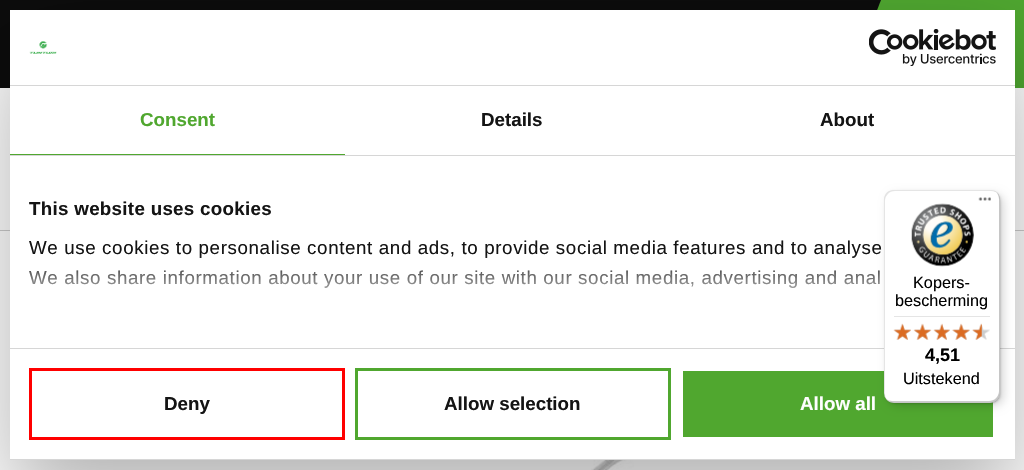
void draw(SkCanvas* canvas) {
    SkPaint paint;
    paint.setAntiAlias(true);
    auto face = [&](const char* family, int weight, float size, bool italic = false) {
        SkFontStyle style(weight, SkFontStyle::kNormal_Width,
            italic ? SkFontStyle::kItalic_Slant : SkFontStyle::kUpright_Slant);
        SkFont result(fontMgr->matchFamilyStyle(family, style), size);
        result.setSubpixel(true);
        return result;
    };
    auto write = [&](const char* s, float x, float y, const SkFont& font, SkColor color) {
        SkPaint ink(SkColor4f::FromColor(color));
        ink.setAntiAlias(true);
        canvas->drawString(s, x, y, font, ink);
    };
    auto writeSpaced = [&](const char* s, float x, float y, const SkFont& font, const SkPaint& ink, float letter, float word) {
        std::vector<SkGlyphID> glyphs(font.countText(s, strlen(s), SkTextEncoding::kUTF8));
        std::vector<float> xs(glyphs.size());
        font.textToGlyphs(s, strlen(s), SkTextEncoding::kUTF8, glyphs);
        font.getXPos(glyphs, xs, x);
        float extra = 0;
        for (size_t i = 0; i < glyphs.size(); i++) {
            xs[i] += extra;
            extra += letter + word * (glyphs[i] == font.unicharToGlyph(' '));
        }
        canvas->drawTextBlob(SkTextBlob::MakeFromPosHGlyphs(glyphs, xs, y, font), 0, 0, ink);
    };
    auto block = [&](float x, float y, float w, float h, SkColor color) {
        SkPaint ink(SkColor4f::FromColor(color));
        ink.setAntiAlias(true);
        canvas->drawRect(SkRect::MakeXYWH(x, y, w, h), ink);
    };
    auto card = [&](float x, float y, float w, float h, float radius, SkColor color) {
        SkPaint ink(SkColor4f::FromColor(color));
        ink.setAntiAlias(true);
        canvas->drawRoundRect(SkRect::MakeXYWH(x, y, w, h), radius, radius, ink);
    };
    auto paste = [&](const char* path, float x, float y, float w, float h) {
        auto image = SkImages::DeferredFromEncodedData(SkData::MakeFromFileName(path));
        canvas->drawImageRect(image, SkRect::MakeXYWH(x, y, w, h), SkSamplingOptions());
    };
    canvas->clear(SK_ColorWHITE);
    block(0, 0, 881, 88, SkColorSetRGB(12, 12, 12));
    paint.setColor(SkColorSetRGB(79, 167, 48));
    canvas->drawPath(SkPathBuilder().moveTo(881, 0).lineTo(931, 0).lineTo(897, 88).lineTo(847, 88).close().detach(), paint);
    block(897, 0, 127, 88, SkColorSetRGB(79, 167, 48));
    block(0, 230, 1024, 1, SkColorSetRGB(204, 204, 204));
    paste("pic15.png", 591, 460, 93, 10);
    paint.setColor(SkColorSetARGB(77, 0, 0, 0));
    paint.setMaskFilter(SkMaskFilter::MakeBlur(kNormal_SkBlurStyle, 42.5f));
    canvas->drawRect(SkRect::MakeXYWH(10, 50, 1005, 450), paint);
    paint.setMaskFilter(nullptr);
    block(10, 10, 1005, 449, SK_ColorWHITE);
    block(10, 85, 1005, 1, SkColorSetRGB(214, 214, 214));
    paste("pic1.png", 29, 41, 28, 13);
    paste("pic2.png", 869, 29, 127, 37);
    block(10, 155, 1005, 1, SkColorSetRGB(214, 214, 214));
    block(10, 154, 335, 1, SkColorSetRGB(80, 167, 47));
    auto kFont1 = face("Liberation Sans", 700, 18.75f);
    write("Consent", 140, 126, kFont1, SkColorSetRGB(80, 167, 47));
    write("Details", 481, 126, kFont1, SkColorSetRGB(20, 20, 20));
    write("About", 820, 126, kFont1, SkColorSetRGB(20, 20, 20));
    block(10, 348, 1005, 1, SkColorSetRGB(214, 214, 214));
    paint.setColor(SkColorSetRGB(20, 20, 20));
    writeSpaced("This website uses cookies", 29, 215, kFont1, paint, 0.3f, 0);
    auto kFont2 = face("Liberation Sans", 400, 18.75f);
    writeSpaced("We use cookies to personalise content and ads, to provide social media features and to analyse", 29, 254, kFont2, paint, 0.62f, 0);
    writeSpaced("We also share information about your use of our site with our social media, advertising and anal", 29, 284, kFont2, paint, 0.62f, 0);
    {
        const SkColor colors[] = {SK_ColorWHITE, SkColorSetARGB(204, 255, 255, 255), SkColorSetARGB(0, 255, 255, 255)};
        const float stops[] = {0, 0.5f, 1};
        const SkPoint ends[] = {{504, 348}, {504, 254}};
        paint.setShader(SkGradientShader::MakeLinear(ends, colors, stops, 3, SkTileMode::kClamp));
        paint.setAlpha(255);
    }
    canvas->drawRect(SkRect::MakeXYWH(28, 255, 852, 33), paint);
    block(10, 459, 1005, 1, SkColorSetRGB(214, 214, 214));
    paint.setStyle(SkPaint::kStroke_Style);
    paint.setStrokeWidth(3);
    paint.setShader(nullptr);
    paint.setColor(SkColorSetRGB(255, 0, 0));
    canvas->drawRect(SkRect::MakeXYWH(30.5f, 369.5f, 313, 69), paint);
    write("Deny", 164, 410, kFont1, SkColorSetRGB(20, 20, 20));
    paint.setColor(SkColorSetRGB(80, 167, 47));
    canvas->drawRect(SkRect::MakeXYWH(356.5f, 369.5f, 313, 69), paint);
    write("Allow selection", 444, 410, kFont1, SkColorSetRGB(20, 20, 20));
    block(683, 371, 310, 66, SkColorSetRGB(80, 167, 47));
    write("Allow all", 800, 410, kFont1, SK_ColorWHITE);
    paint.setStyle(SkPaint::kFill_Style);
    paint.setColor(SkColorSetARGB(38, 0, 0, 0));
    paint.setMaskFilter(SkMaskFilter::MakeBlur(kNormal_SkBlurStyle, 5));
    canvas->drawRoundRect(SkRect::MakeXYWH(888, 194, 116, 212), 10, 10, paint);
    paint.setMaskFilter(nullptr);
    paint.setMaskFilter(SkMaskFilter::MakeBlur(kNormal_SkBlurStyle, 1));
    canvas->drawRoundRect(SkRect::MakeXYWH(885, 191, 116, 213), 10, 10, paint);
    paint.setMaskFilter(nullptr);
    card(884, 190, 116, 213, 10, SK_ColorWHITE);
    paint.setColor(SkColorSetARGB(26, 0, 0, 0));
    canvas->drawPath(SkPathBuilder().moveTo(895, 191).lineTo(991, 191).cubicTo(994, 191, 996, 192, 998, 193).cubicTo(996, 191, 993, 190, 990, 190).lineTo(894, 190).cubicTo(888, 190, 884, 194, 884, 200).lineTo(884, 393).cubicTo(884, 396, 885, 399, 888, 401).cubicTo(886, 399, 885, 396, 885, 394).lineTo(885, 201).cubicTo(885, 196, 889, 191, 895, 191).close().detach(), paint);
    paint.setColor(SkColorSetARGB(51, 0, 0, 0));
    canvas->drawPath(SkPathBuilder().moveTo(886, 399).cubicTo(888, 401, 891, 403, 894, 403).lineTo(990, 403).cubicTo(996, 403, 1000, 399, 1000, 393).lineTo(1000, 200).cubicTo(1000, 197, 999, 194, 997, 192).cubicTo(998, 194, 999, 196, 999, 199).lineTo(999, 391).cubicTo(999, 397, 994, 401, 989, 401).lineTo(892, 401).cubicTo(890, 401, 888, 400, 886, 399).close().detach(), paint);
    paint.setColor(SkColorSetARGB(51, 50, 50, 50));
    canvas->drawPath(SkPathBuilder().moveTo(886, 400).cubicTo(888, 402, 891, 403, 894, 403).lineTo(990, 403).cubicTo(996, 403, 1000, 399, 1000, 393).lineTo(1000, 200).cubicTo(1000, 197, 999, 194, 996, 192).cubicTo(998, 194, 999, 197, 999, 199).lineTo(999, 392).cubicTo(999, 397, 995, 402, 989, 402).lineTo(893, 402).cubicTo(890, 402, 888, 401, 886, 400).close().detach(), paint);
    paint.setColor(SkColorSetARGB(77, 255, 255, 255));
    canvas->drawPath(SkPathBuilder().moveTo(885, 398).cubicTo(887, 401, 890, 403, 894, 403).lineTo(990, 403).cubicTo(996, 403, 1000, 399, 1000, 393).lineTo(1000, 200).cubicTo(1000, 197, 999, 194, 996, 192).cubicTo(998, 194, 999, 197, 999, 199).lineTo(999, 392).cubicTo(999, 397, 995, 402, 989, 402).lineTo(893, 402).cubicTo(890, 402, 887, 400, 885, 398).close().detach(), paint);
    paste("pic3.png", 978, 197, 13, 4);
    paste("pic4.png", 911, 203, 63, 64);
    auto kFont3 = face("Liberation Sans", 400, 16.25f);
    write("Kopers-", 913, 288, kFont3, SK_ColorBLACK);
    write("bescherming", 895, 306, kFont3, SK_ColorBLACK);
    block(894, 316, 96, 1, SkColorSetRGB(229, 229, 229));
    paste("pic10.png", 894, 324, 17, 16);
    paste("pic5.png", 893, 323, 18, 17);
    paste("pic11.png", 914, 324, 17, 16);
    paste("pic6.png", 913, 323, 19, 17);
    paste("pic12.png", 934, 324, 16, 16);
    paste("pic7.png", 933, 323, 17, 17);
    paste("pic13.png", 952, 324, 18, 16);
    paste("pic8.png", 952, 323, 18, 17);
    paste("pic14.png", 972, 324, 18, 16);
    paste("pic9.png", 972, 323, 10, 17);
    auto kFont4 = face("Liberation Sans", 700, 18);
    write("4,51", 925, 361, kFont4, SK_ColorBLACK);
    write("Uitstekend", 903, 384, kFont3, SK_ColorBLACK);
}
